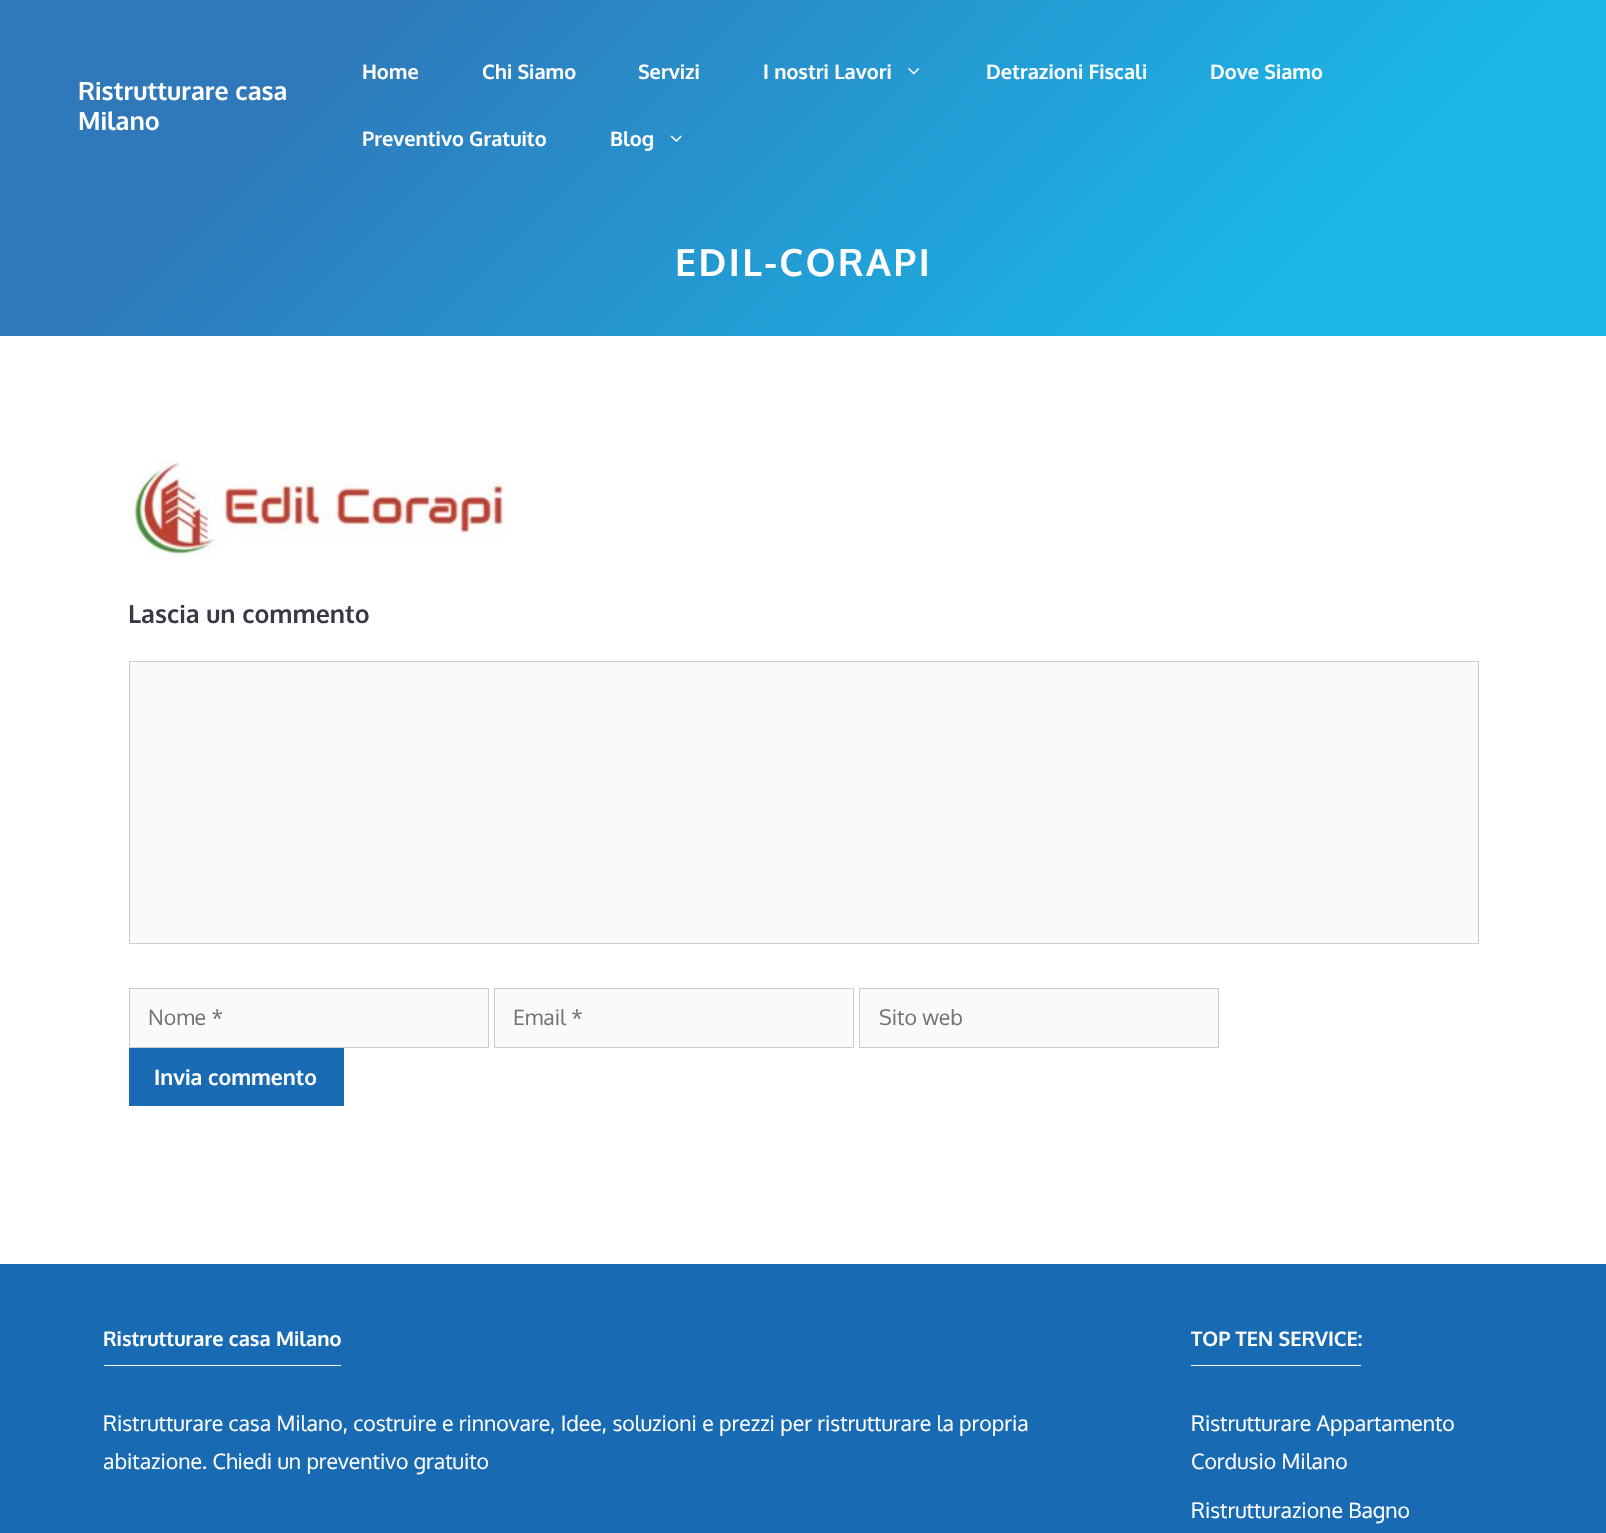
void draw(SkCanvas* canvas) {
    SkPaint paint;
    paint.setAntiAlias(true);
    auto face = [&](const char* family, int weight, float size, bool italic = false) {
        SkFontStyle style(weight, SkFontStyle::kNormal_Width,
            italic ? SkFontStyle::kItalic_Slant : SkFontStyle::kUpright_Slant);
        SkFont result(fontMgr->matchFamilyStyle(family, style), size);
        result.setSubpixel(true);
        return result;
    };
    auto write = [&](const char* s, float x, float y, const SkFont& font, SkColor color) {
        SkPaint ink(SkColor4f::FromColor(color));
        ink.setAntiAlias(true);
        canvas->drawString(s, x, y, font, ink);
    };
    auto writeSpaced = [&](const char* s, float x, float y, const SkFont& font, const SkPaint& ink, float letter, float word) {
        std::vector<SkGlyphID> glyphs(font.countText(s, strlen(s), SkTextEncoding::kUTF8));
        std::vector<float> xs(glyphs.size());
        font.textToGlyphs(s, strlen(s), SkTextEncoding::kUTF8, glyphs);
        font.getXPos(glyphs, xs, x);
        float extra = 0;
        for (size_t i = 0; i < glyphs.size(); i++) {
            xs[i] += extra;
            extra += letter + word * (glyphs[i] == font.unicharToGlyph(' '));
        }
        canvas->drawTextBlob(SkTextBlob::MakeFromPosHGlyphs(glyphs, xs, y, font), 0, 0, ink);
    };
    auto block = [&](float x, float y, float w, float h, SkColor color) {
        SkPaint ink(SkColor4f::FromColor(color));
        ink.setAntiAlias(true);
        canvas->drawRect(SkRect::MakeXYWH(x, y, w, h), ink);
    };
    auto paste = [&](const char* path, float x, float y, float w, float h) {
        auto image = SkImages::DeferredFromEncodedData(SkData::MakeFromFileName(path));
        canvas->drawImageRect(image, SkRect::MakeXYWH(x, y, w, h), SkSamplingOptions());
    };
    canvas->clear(SK_ColorWHITE);
    {
        const SkColor colors[] = {SkColorSetRGB(47, 121, 186), SkColorSetRGB(26, 183, 232)};
        const float stops[] = {0.2f, 0.8f};
        const SkPoint ends[] = {{317, -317}, {1289, 654}};
        paint.setShader(SkGradientShader::MakeLinear(ends, colors, stops, 2, SkTileMode::kClamp));
        paint.setAlpha(255);
    }
    canvas->drawRect(SkRect::MakeXYWH(0, 0, 1606, 336), paint);
    auto kFont1 = face("Oxygen", 700, 25);
    write("Ristrutturare casa", 78, 100, kFont1, SK_ColorWHITE);
    write("Milano", 78, 130, kFont1, SK_ColorWHITE);
    auto kFont2 = face("Oxygen", 700, 20);
    write("Home", 362, 79, kFont2, SK_ColorWHITE);
    write("Chi Siamo", 482, 79, kFont2, SK_ColorWHITE);
    write("Servizi", 638, 79, kFont2, SK_ColorWHITE);
    write("I nostri Lavori", 763, 79, kFont2, SK_ColorWHITE);
    paste("pic1.png", 908, 68, 12, 7);
    write("Detrazioni Fiscali", 986, 79, kFont2, SK_ColorWHITE);
    write("Dove Siamo", 1210, 79, kFont2, SK_ColorWHITE);
    write("Preventivo Gratuito", 362, 146, kFont2, SK_ColorWHITE);
    write("Blog", 610, 146, kFont2, SK_ColorWHITE);
    paste("pic2.png", 670, 135, 12, 7);
    auto kFont3 = face("Oxygen", 700, 37.5f);
    paint.setShader(nullptr);
    paint.setColor(SK_ColorWHITE);
    writeSpaced("EDIL-CORAPI", 675, 276, kFont3, paint, 2.5f, 0);
    paste("pic3.png", 129, 461, 375, 94);
    auto kFont4 = face("Oxygen", 700, 24.9f);
    write("Lascia un commento", 128, 623, kFont4, SkColorSetRGB(60, 55, 68));
    paint.setColor(SkColorSetRGB(250, 250, 250));
    canvas->drawRect(SkRect::MakeXYWH(129.5f, 661.5f, 1349, 282), paint);
    paint.setStyle(SkPaint::kStroke_Style);
    paint.setStrokeWidth(1);
    paint.setColor(SkColorSetRGB(204, 204, 204));
    canvas->drawRect(SkRect::MakeXYWH(129.5f, 661.5f, 1349, 282), paint);
    paint.setStyle(SkPaint::kFill_Style);
    paint.setColor(SkColorSetRGB(250, 250, 250));
    canvas->drawRect(SkRect::MakeXYWH(129.5f, 988.5f, 359, 59), paint);
    paint.setStyle(SkPaint::kStroke_Style);
    paint.setColor(SkColorSetRGB(204, 204, 204));
    canvas->drawRect(SkRect::MakeXYWH(129.5f, 988.5f, 359, 59), paint);
    auto kFont5 = face("Oxygen", 400, 21.25f);
    write("Nome *", 148, 1025, kFont5, SkColorSetRGB(117, 117, 117));
    paint.setStyle(SkPaint::kFill_Style);
    paint.setColor(SkColorSetRGB(250, 250, 250));
    canvas->drawRect(SkRect::MakeXYWH(494.5f, 988.5f, 359, 59), paint);
    paint.setStyle(SkPaint::kStroke_Style);
    paint.setColor(SkColorSetRGB(204, 204, 204));
    canvas->drawRect(SkRect::MakeXYWH(494.5f, 988.5f, 359, 59), paint);
    write("Email *", 513, 1025, kFont5, SkColorSetRGB(117, 117, 117));
    paint.setStyle(SkPaint::kFill_Style);
    paint.setColor(SkColorSetRGB(250, 250, 250));
    canvas->drawRect(SkRect::MakeXYWH(859.5f, 988.5f, 359, 59), paint);
    paint.setStyle(SkPaint::kStroke_Style);
    paint.setColor(SkColorSetRGB(204, 204, 204));
    canvas->drawRect(SkRect::MakeXYWH(859.5f, 988.5f, 359, 59), paint);
    write("Sito web", 879, 1025, kFont5, SkColorSetRGB(117, 117, 117));
    block(129, 1048, 215, 58, SkColorSetRGB(24, 106, 178));
    auto kFont6 = face("Oxygen", 700, 21.25f);
    write("Invia commento", 154, 1085, kFont6, SK_ColorWHITE);
    block(0, 1264, 1606, 269, SkColorSetRGB(24, 106, 178));
    block(104, 1365, 237, 1, SK_ColorWHITE);
    write("Ristrutturare casa Milano", 103, 1346, kFont2, SK_ColorWHITE);
    write("Ristrutturare casa Milano, costruire e rinnovare, Idee, soluzioni e prezzi per ristrutturare la propria", 103, 1431, kFont5, SK_ColorWHITE);
    write("abitazione. Chiedi un preventivo gratuito", 103, 1469, kFont5, SK_ColorWHITE);
    block(1191, 1365, 170, 1, SK_ColorWHITE);
    write("TOP TEN SERVICE:", 1191, 1346, kFont2, SK_ColorWHITE);
    write("Ristrutturare Appartamento", 1191, 1431, kFont5, SK_ColorWHITE);
    write("Cordusio Milano", 1191, 1469, kFont5, SK_ColorWHITE);
    write("Ristrutturazione Bagno", 1191, 1518, kFont5, SK_ColorWHITE);
}
